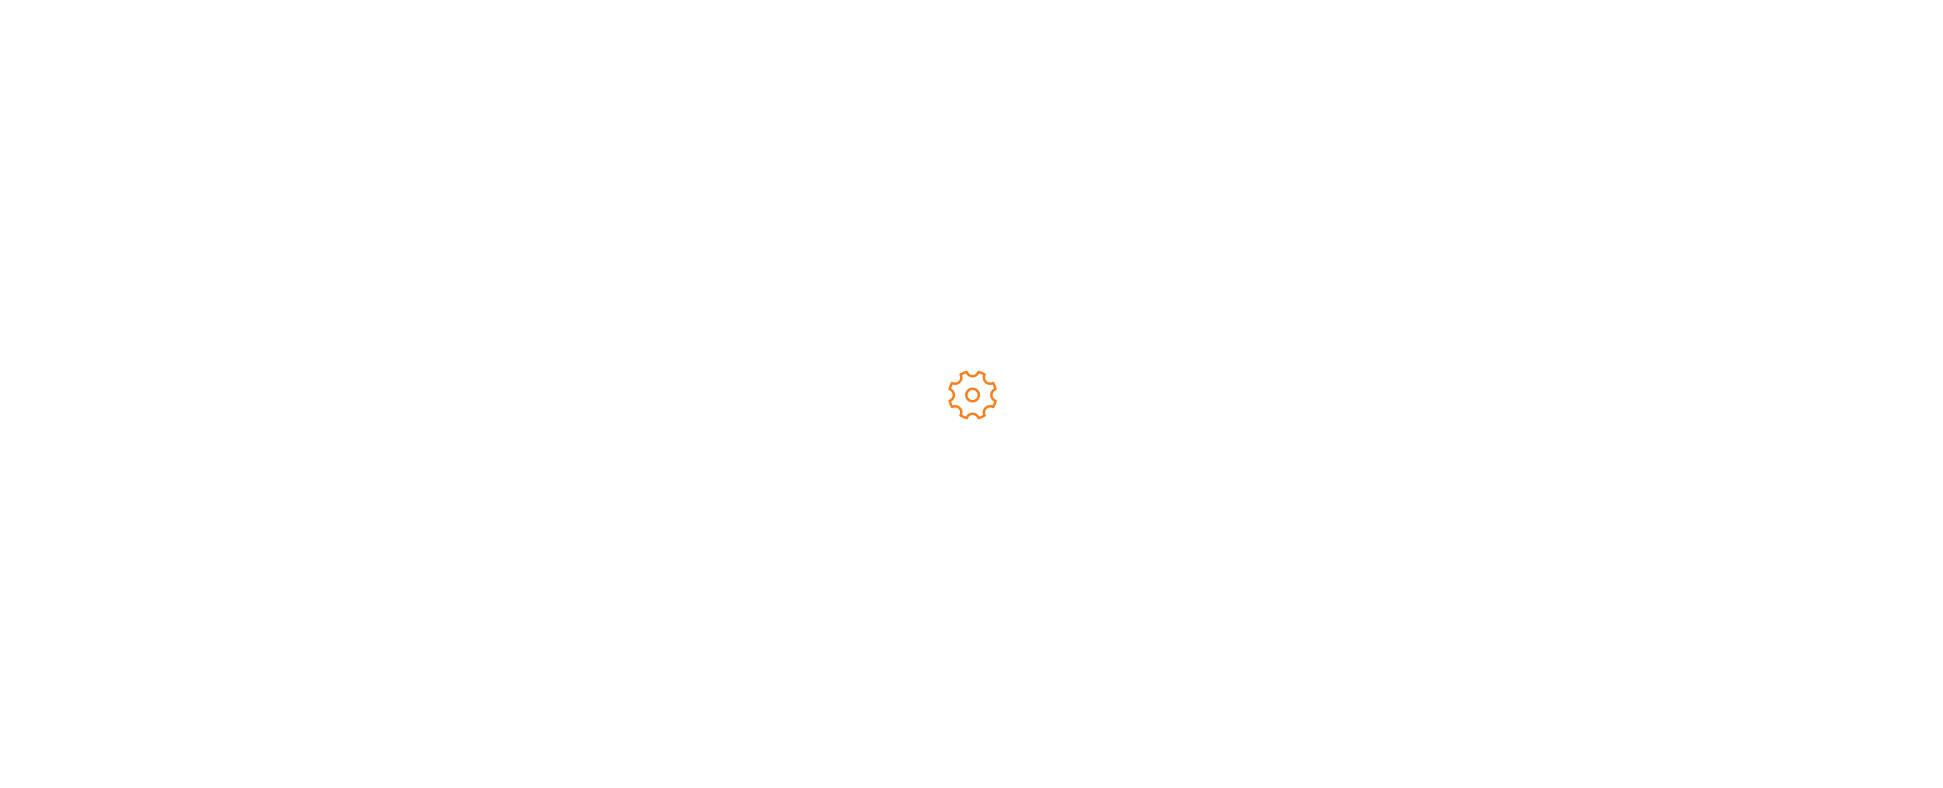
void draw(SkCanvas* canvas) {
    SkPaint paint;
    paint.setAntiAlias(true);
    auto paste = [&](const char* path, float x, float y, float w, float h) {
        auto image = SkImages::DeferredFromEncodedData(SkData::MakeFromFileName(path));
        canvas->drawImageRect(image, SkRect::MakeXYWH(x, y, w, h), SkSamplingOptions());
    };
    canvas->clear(SK_ColorWHITE);
    paste("pic1.png", 948, 370, 49, 50);
}
